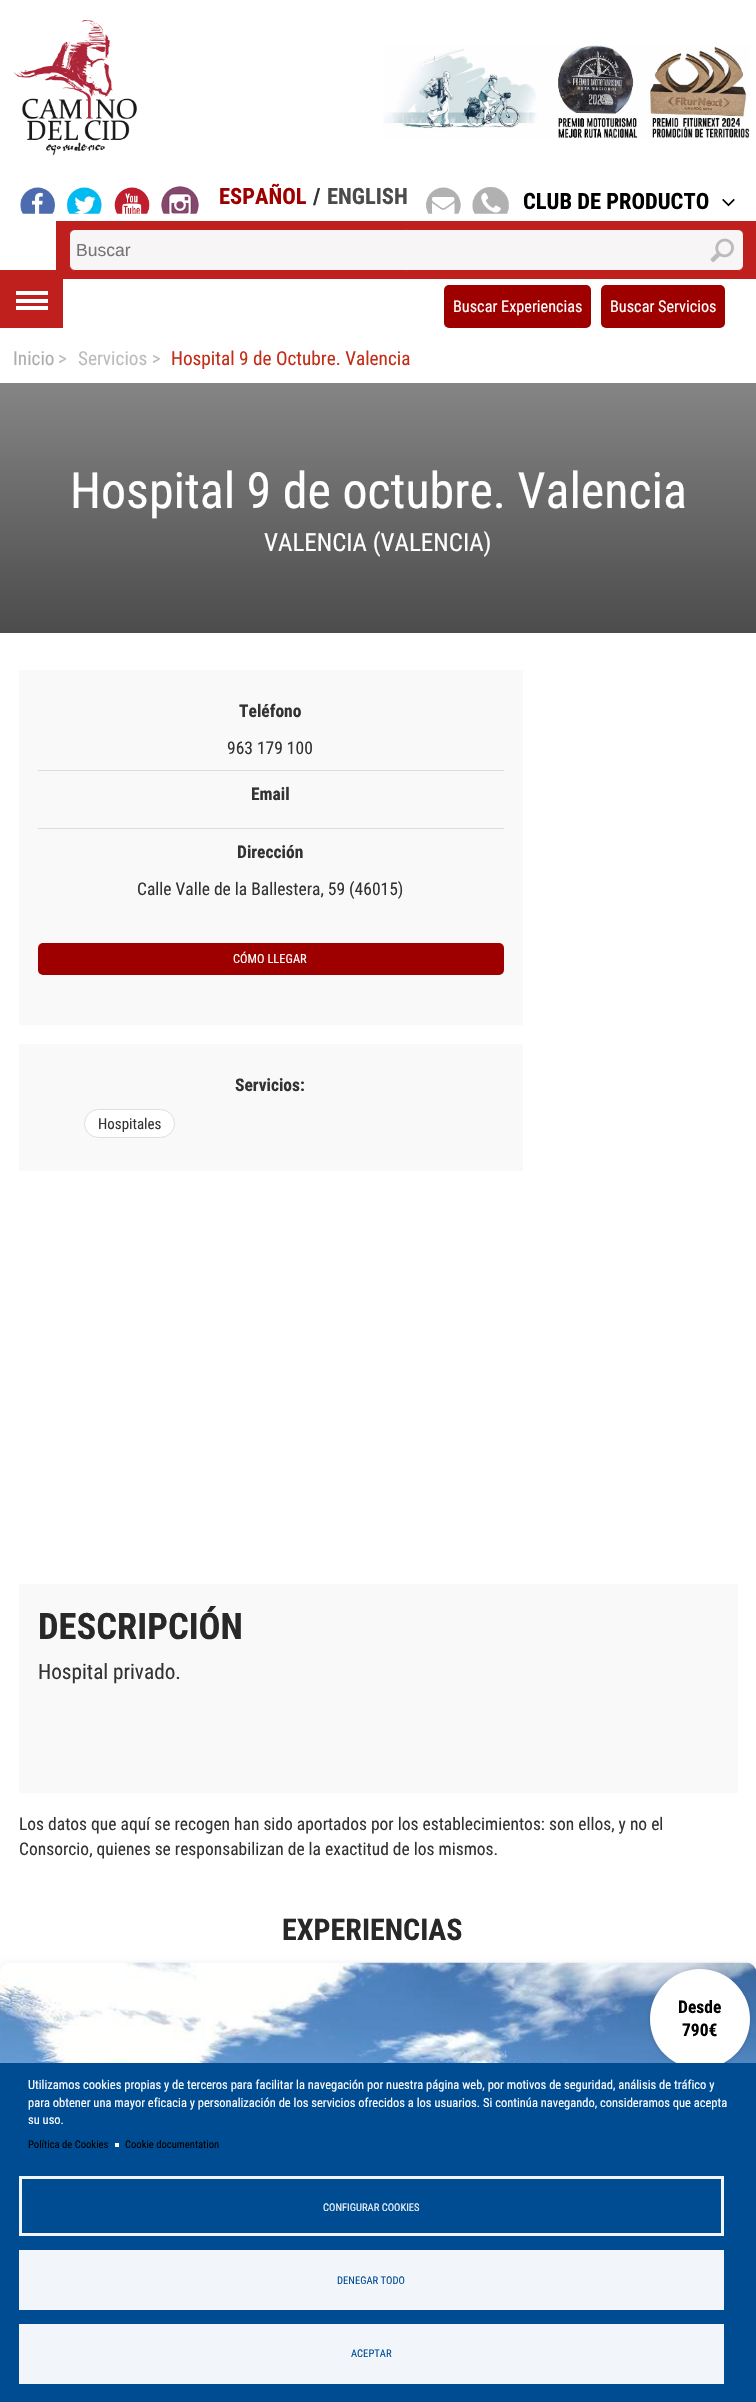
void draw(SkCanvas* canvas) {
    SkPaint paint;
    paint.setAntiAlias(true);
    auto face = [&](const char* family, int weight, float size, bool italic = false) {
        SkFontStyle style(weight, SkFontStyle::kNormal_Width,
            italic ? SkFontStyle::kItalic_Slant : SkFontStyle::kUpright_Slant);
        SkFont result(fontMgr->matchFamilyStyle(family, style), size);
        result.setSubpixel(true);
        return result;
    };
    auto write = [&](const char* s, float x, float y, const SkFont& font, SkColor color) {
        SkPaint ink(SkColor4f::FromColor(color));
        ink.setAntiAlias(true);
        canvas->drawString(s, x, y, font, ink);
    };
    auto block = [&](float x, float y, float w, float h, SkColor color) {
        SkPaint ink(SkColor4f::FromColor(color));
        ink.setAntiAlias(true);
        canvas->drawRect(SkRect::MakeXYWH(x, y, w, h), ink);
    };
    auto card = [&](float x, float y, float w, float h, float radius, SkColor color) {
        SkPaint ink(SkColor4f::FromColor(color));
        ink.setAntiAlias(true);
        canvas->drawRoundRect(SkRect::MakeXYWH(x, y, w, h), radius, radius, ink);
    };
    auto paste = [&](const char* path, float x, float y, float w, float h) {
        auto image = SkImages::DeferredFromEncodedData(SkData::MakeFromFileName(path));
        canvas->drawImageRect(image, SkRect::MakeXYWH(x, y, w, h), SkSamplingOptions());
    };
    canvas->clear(SK_ColorWHITE);
    block(56, 221, 700, 58, SkColorSetRGB(191, 32, 30));
    block(0, 270, 63, 58, SkColorSetRGB(191, 32, 30));
    block(16, 291, 32, 4, SK_ColorWHITE);
    block(16, 299, 32, 4, SK_ColorWHITE);
    block(16, 306, 32, 4, SK_ColorWHITE);
    paste("pic1.png", 13, 20, 124, 135);
    paste("pic2.png", 383, 45, 367, 94);
    paste("pic3.png", 20, 187, 35, 27);
    paste("pic4.png", 67, 187, 35, 27);
    paste("pic5.png", 114, 187, 36, 27);
    paste("pic6.png", 161, 186, 38, 28);
    auto kFont1 = face("Roboto Condensed", 700, 22.5f);
    write("ESPAÑOL", 219, 204, kFont1, SkColorSetRGB(158, 0, 0));
    write("/", 313, 204, kFont1, SkColorSetRGB(51, 51, 51));
    write("ENGLISH", 327, 204, kFont1, SkColorSetRGB(75, 75, 75));
    paste("pic7.png", 425, 187, 36, 27);
    paste("pic8.png", 472, 187, 37, 27);
    write("CLUB DE PRODUCTO", 523, 209, kFont1, SK_ColorBLACK);
    paste("pic9.png", 722, 199, 13, 8);
    paint.setColor(SkColorSetRGB(247, 245, 245));
    canvas->drawRoundRect(SkRect::MakeXYWH(69.5f, 229.5f, 674, 41), 5.5f, 5.5f, paint);
    paint.setStyle(SkPaint::kStroke_Style);
    paint.setStrokeWidth(1);
    paint.setColor(SkColorSetRGB(191, 32, 30));
    canvas->drawRoundRect(SkRect::MakeXYWH(69.5f, 229.5f, 674, 41), 5.5f, 5.5f, paint);
    auto kFont2 = face("Liberation Sans", 400, 17.5f);
    write("Buscar", 76, 256, kFont2, SkColorSetRGB(117, 117, 117));
    paste("pic10.png", 710, 238, 24, 24);
    card(444, 285, 147, 43, 5, SkColorSetRGB(158, 0, 0));
    auto kFont3 = face("Roboto Condensed", 400, 16.25f);
    write("Buscar Experiencias", 453, 312, kFont3, SK_ColorWHITE);
    card(601, 285, 124, 43, 5, SkColorSetRGB(158, 0, 0));
    write("Buscar Servicios", 610, 312, kFont3, SK_ColorWHITE);
    auto kFont4 = face("Roboto Condensed", 400, 19.25f);
    write("Inicio", 13, 365, kFont4, SkColorSetRGB(173, 173, 173));
    write(">", 58, 365, kFont4, SkColorSetRGB(188, 188, 188));
    write("Servicios >", 78, 365, kFont4, SkColorSetRGB(188, 188, 188));
    write("Hospital 9 de Octubre. Valencia", 171, 365, kFont4, SkColorSetRGB(194, 46, 24));
    paint.setStyle(SkPaint::kFill_Style);
    {
        const SkColor colors[] = {SkColorSetRGB(133, 133, 133), SkColorSetRGB(76, 76, 76)};
        const float stops[] = {0, 1};
        const SkPoint ends[] = {{378, 382}, {378, 633}};
        paint.setShader(SkGradientShader::MakeLinear(ends, colors, stops, 2, SkTileMode::kClamp));
        paint.setAlpha(255);
    }
    canvas->drawRect(SkRect::MakeXYWH(0, 383, 756, 250), paint);
    auto kFont5 = face("Roboto Condensed", 400, 50);
    write("Hospital 9 de octubre. Valencia", 70, 508, kFont5, SK_ColorWHITE);
    auto kFont6 = face("Roboto Condensed", 400, 25);
    write("VALENCIA (VALENCIA)", 264, 551, kFont6, SK_ColorWHITE);
    block(19, 670, 504, 355, SkColorSetRGB(249, 249, 249));
    block(38, 770, 466, 1, SkColorSetRGB(221, 221, 221));
    auto kFont7 = face("Roboto Condensed", 700, 17.5f);
    write("Teléfono", 239, 717, kFont7, SkColorSetRGB(51, 51, 51));
    auto kFont8 = face("Roboto Condensed", 400, 17.5f);
    write("963 179 100", 227, 754, kFont8, SkColorSetRGB(51, 51, 51));
    block(38, 828, 466, 1, SkColorSetRGB(221, 221, 221));
    write("Email", 251, 800, kFont7, SkColorSetRGB(51, 51, 51));
    write("Dirección", 237, 858, kFont7, SkColorSetRGB(51, 51, 51));
    write("Calle Valle de la Ballestera, 59 (46015)", 137, 895, kFont8, SkColorSetRGB(51, 51, 51));
    card(38, 943, 466, 32, 5, SkColorSetRGB(158, 0, 0));
    auto kFont9 = face("Roboto Condensed", 400, 12.5f);
    write("CÓMO LLEGAR", 233, 963, kFont9, SK_ColorWHITE);
    block(19, 1044, 504, 127, SkColorSetRGB(249, 249, 249));
    write("Servicios:", 235, 1091, kFont7, SkColorSetRGB(51, 51, 51));
    paint.setShader(nullptr);
    paint.setColor(SK_ColorWHITE);
    canvas->drawRoundRect(SkRect::MakeXYWH(84.5f, 1109.5f, 90, 28), 14, 14, paint);
    paint.setStyle(SkPaint::kStroke_Style);
    paint.setColor(SkColorSetRGB(222, 222, 222));
    canvas->drawRoundRect(SkRect::MakeXYWH(84.5f, 1109.5f, 90, 28), 14, 14, paint);
    auto kFont10 = face("Roboto Condensed", 400, 15);
    write("Hospitales", 98, 1129, kFont10, SkColorSetRGB(51, 51, 51));
    block(19, 1584, 719, 209, SkColorSetRGB(249, 249, 249));
    auto kFont11 = face("Roboto Condensed", 700, 36.5f);
    write("DESCRIPCIÓN", 38, 1639, kFont11, SkColorSetRGB(41, 40, 40));
    auto kFont12 = face("Roboto Condensed", 400, 21.25f);
    write("Hospital privado.", 38, 1679, kFont12, SkColorSetRGB(51, 51, 51));
    write("Los datos que aquí se recogen han sido aportados por los establecimientos: son ellos, y no el", 19, 1830, kFont8, SkColorSetRGB(51, 51, 51));
    write("Consorcio, quienes se responsabilizan de la exactitud de los mismos.", 19, 1855, kFont8, SkColorSetRGB(51, 51, 51));
    auto kFont13 = face("Roboto Condensed", 700, 30);
    write("EXPERIENCIAS", 282, 1940, kFont13, SkColorSetRGB(41, 40, 40));
    paint.setStyle(SkPaint::kFill_Style);
    paint.setColor(SkColorSetARGB(26, 0, 0, 0));
    paint.setMaskFilter(SkMaskFilter::MakeBlur(kNormal_SkBlurStyle, 4));
    canvas->drawRoundRect(SkRect::MakeXYWH(0, 1965, 756, 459), 10, 10, paint);
    paint.setMaskFilter(nullptr);
    paste("pic11.png", 0, 1962, 756, 101);
    paint.setColor(SkColorSetARGB(38, 0, 0, 0));
    paint.setMaskFilter(SkMaskFilter::MakeBlur(kNormal_SkBlurStyle, 2));
    canvas->drawRoundRect(SkRect::MakeXYWH(650, 1970, 100, 100), 50, 50, paint);
    paint.setMaskFilter(nullptr);
    paint.setColor(SK_ColorWHITE);
    canvas->drawCircle(700, 2019, 50, paint);
    write("Desde", 678, 2013, kFont7, SK_ColorBLACK);
    write("790€", 682, 2036, kFont7, SK_ColorBLACK);
    block(0, 2063, 756, 339, SkColorSetRGB(0, 76, 147));
    write("Utilizamos cookies propias y de terceros para facilitar la navegación por nuestra página web, por motivos de seguridad, análisis de tráfico y", 28, 2089, kFont9, SK_ColorWHITE);
    write("para obtener una mayor eficacia y personalización de los servicios ofrecidos a los usuarios. Si continúa navegando, consideramos que acepta", 28, 2107, kFont9, SK_ColorWHITE);
    write("su uso.", 28, 2124, kFont9, SK_ColorWHITE);
    auto kFont14 = face("Roboto Condensed", 400, 10.6f);
    write("Política de Cookies", 28, 2148, kFont14, SK_ColorBLACK);
    block(115, 2143, 4, 4, SK_ColorWHITE);
    write("Cookie documentation", 125, 2148, kFont14, SK_ColorBLACK);
    paint.setStyle(SkPaint::kStroke_Style);
    paint.setStrokeWidth(3);
    paint.setColor(SkColorSetRGB(242, 246, 250));
    canvas->drawRect(SkRect::MakeXYWH(20.5f, 2177.5f, 702, 57), paint);
    write("CONFIGURAR COOKIES", 323, 2211, kFont14, SkColorSetRGB(242, 246, 250));
    block(19, 2250, 705, 60, SkColorSetRGB(242, 246, 250));
    write("DENEGAR TODO", 337, 2284, kFont14, SkColorSetRGB(0, 76, 147));
    block(19, 2324, 705, 60, SkColorSetRGB(242, 246, 250));
    write("ACEPTAR", 351, 2357, kFont14, SkColorSetRGB(0, 76, 147));
}
